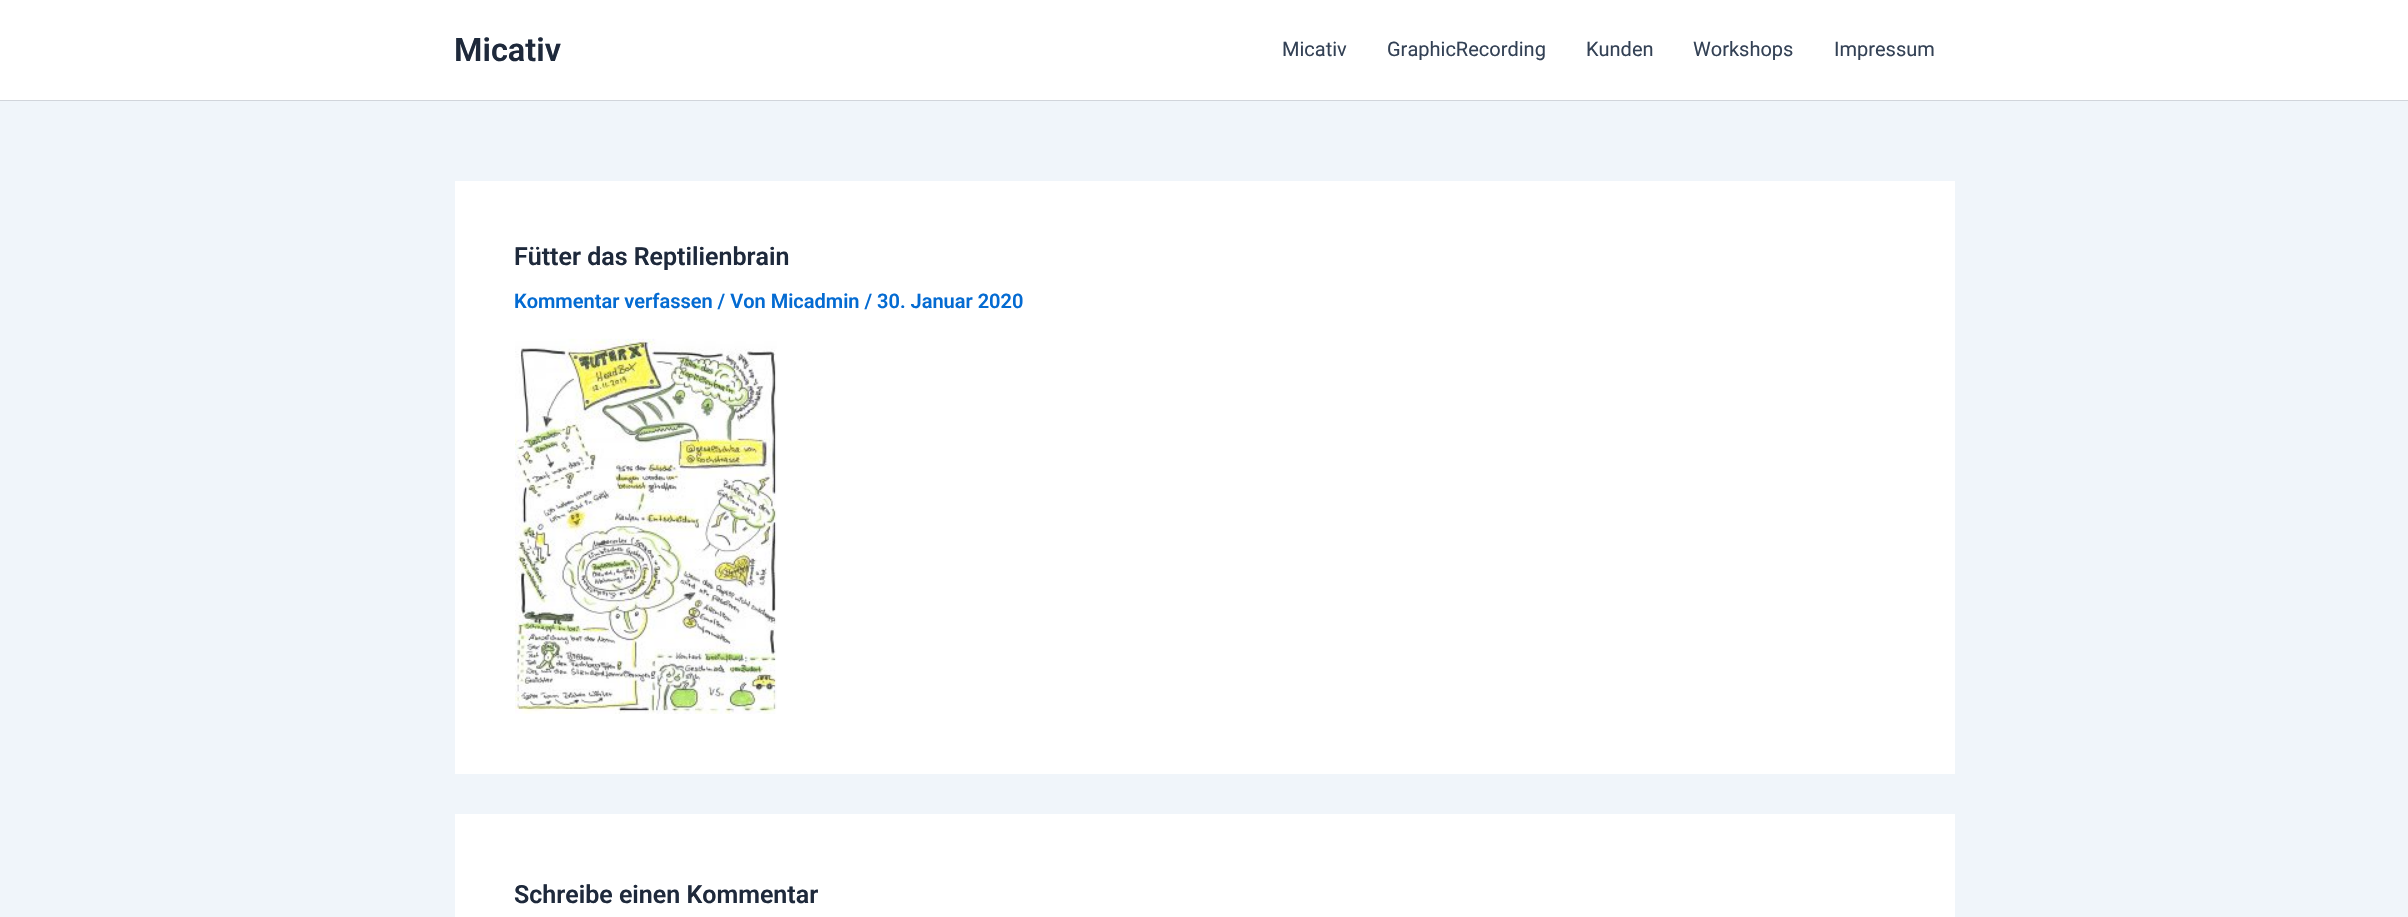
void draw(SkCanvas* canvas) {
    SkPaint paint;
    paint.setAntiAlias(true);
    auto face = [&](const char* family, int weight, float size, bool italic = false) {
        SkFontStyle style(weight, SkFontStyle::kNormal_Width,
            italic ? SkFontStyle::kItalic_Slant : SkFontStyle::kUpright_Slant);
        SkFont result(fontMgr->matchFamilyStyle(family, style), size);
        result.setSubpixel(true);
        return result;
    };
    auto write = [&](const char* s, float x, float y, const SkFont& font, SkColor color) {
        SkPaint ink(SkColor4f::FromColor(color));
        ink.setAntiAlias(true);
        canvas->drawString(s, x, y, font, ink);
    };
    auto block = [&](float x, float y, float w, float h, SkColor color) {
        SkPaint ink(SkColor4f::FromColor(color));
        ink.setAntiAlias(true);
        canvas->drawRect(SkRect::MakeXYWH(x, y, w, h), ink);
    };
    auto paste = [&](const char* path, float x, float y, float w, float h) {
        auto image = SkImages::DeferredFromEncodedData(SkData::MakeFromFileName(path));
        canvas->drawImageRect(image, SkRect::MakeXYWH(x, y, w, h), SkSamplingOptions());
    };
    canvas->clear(SkColorSetRGB(240, 245, 250));
    block(0, 0, 2408, 100, SK_ColorWHITE);
    block(0, 100, 2408, 1, SkColorSetRGB(209, 213, 219));
    auto kFont1 = face("Roboto", 600, 32.5f);
    write("Micativ", 454, 61, kFont1, SkColorSetRGB(30, 41, 59));
    auto kFont2 = face("Roboto", 400, 20);
    write("Micativ", 1282, 56, kFont2, SkColorSetRGB(51, 65, 85));
    write("GraphicRecording", 1387, 56, kFont2, SkColorSetRGB(51, 65, 85));
    write("Kunden", 1586, 56, kFont2, SkColorSetRGB(51, 65, 85));
    write("Workshops", 1693, 56, kFont2, SkColorSetRGB(51, 65, 85));
    write("Impressum", 1834, 56, kFont2, SkColorSetRGB(51, 65, 85));
    block(455, 181, 1500, 593, SK_ColorWHITE);
    auto kFont3 = face("Roboto", 600, 25);
    write("Fütter das Reptilienbrain", 514, 265, kFont3, SkColorSetRGB(30, 41, 59));
    auto kFont4 = face("Roboto", 600, 20);
    write("Kommentar verfassen / Von Micadmin / 30. Januar 2020", 514, 308, kFont4, SkColorSetRGB(4, 107, 210));
    paste("pic1.png", 515, 338, 262, 376);
    block(455, 814, 1500, 103, SK_ColorWHITE);
    write("Schreibe einen Kommentar", 514, 903, kFont3, SkColorSetRGB(30, 41, 59));
}
